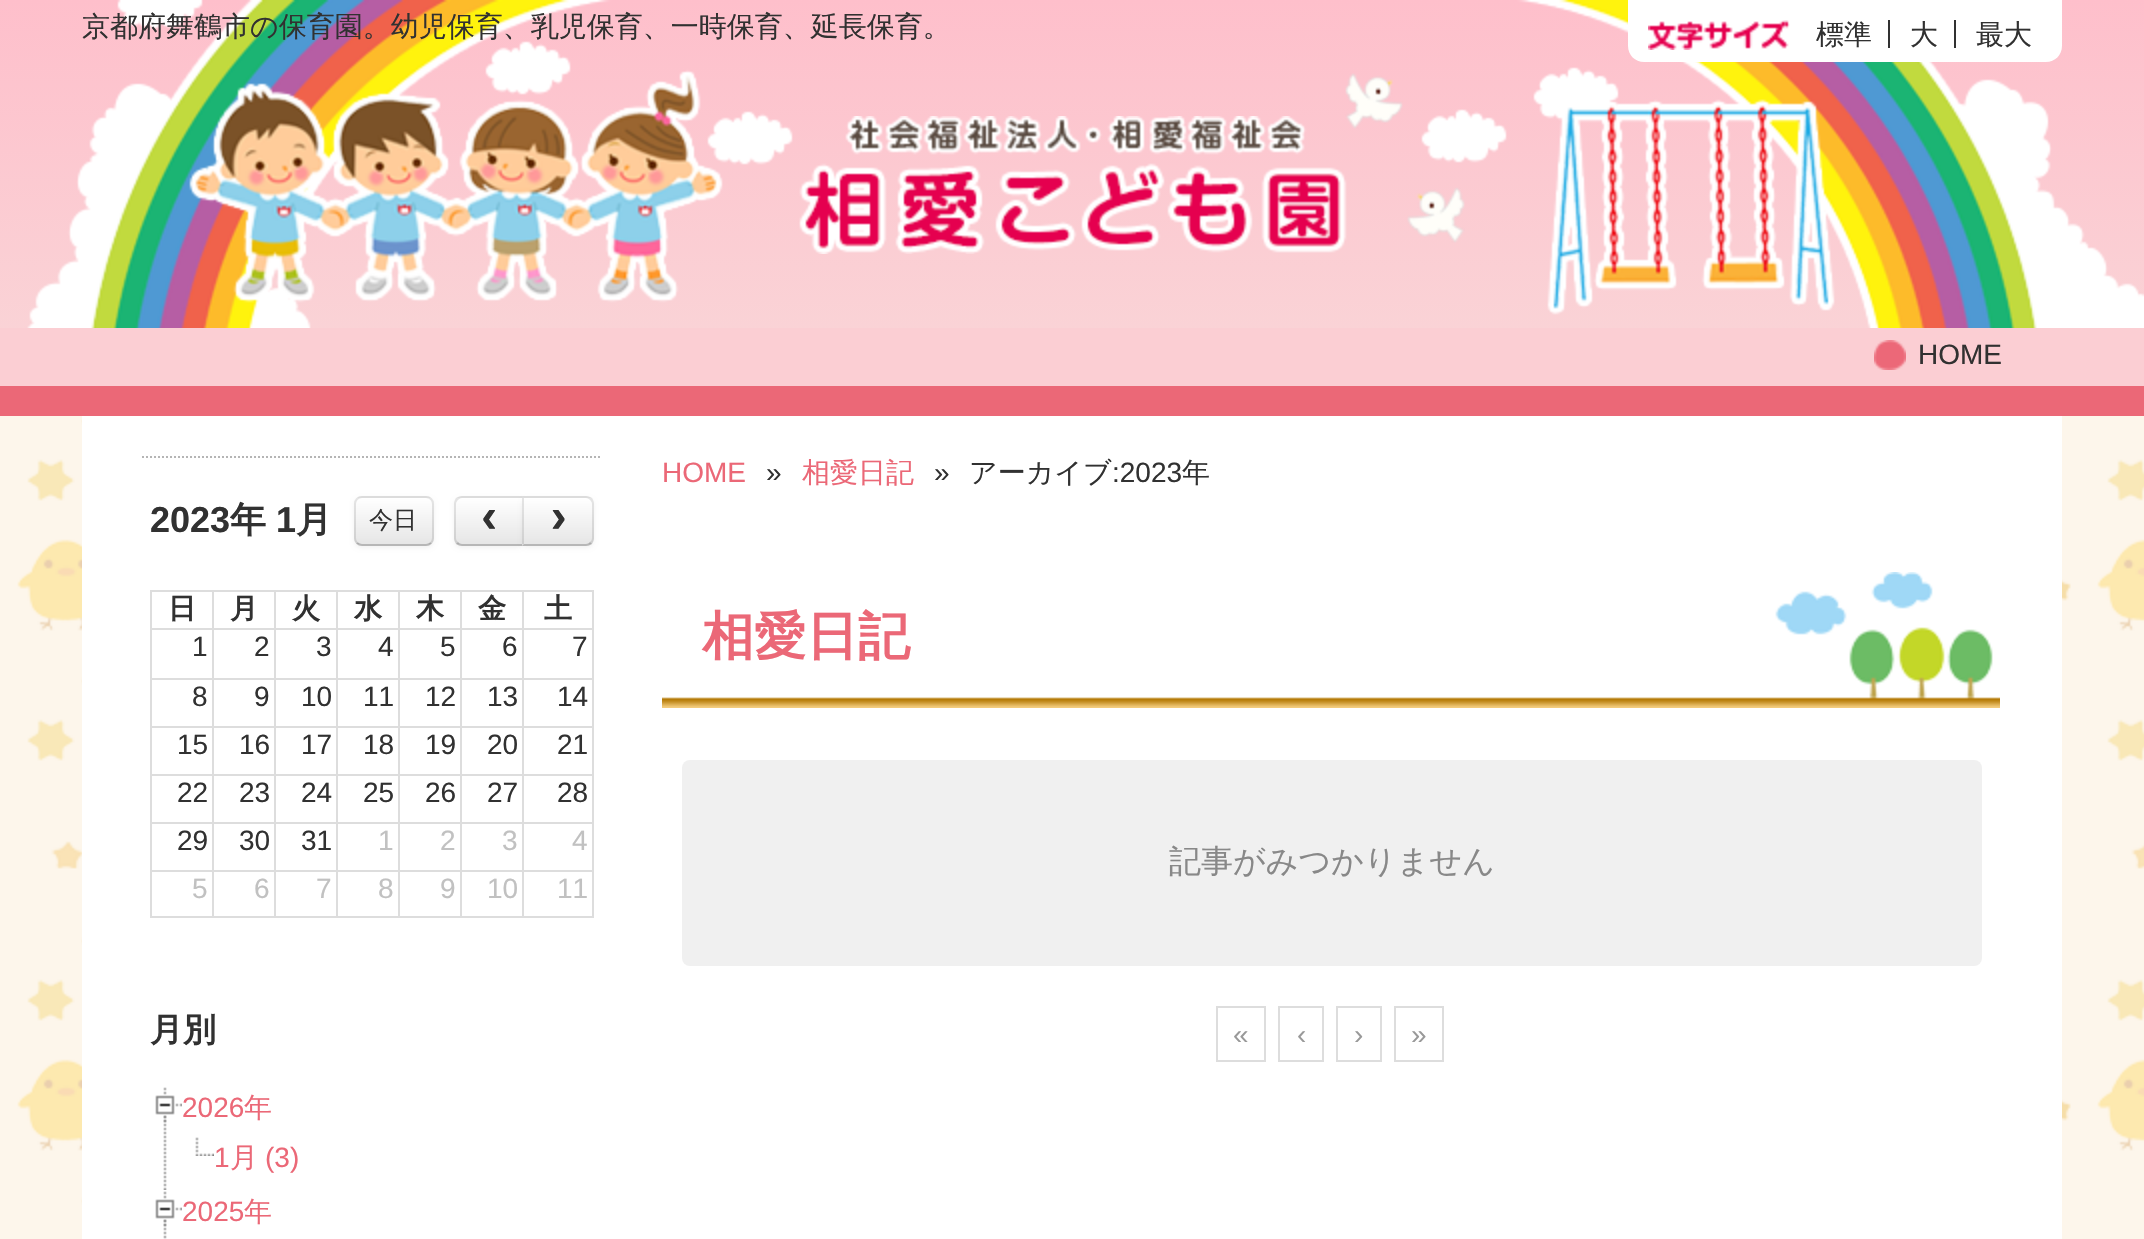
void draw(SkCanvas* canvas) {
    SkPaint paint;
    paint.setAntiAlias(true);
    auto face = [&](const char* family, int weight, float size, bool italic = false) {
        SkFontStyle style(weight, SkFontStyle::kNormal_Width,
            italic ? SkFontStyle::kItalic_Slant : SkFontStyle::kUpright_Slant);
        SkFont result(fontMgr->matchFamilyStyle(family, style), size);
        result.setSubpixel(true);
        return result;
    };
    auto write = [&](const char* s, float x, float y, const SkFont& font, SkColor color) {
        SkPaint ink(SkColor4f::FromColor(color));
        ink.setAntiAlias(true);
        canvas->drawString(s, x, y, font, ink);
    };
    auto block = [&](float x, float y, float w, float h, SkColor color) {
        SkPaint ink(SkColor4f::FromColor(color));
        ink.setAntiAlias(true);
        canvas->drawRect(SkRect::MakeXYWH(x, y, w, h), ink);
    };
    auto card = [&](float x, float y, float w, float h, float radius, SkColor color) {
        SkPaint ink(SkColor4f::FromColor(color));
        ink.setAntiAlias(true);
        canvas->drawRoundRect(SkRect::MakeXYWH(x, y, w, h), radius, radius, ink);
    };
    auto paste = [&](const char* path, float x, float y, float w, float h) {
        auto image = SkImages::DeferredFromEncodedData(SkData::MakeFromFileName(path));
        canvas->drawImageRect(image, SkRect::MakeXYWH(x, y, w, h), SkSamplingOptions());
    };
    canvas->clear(SK_ColorWHITE);
    paste("pic1.png", 0, 416, 2144, 823);
    paste("pic2.png", 0, 0, 2144, 328);
    auto kFont1 = face("WenQuanYi Zen Hei", 500, 28);
    write("京都府舞鶴市の保育園。幼児保育、乳児保育、一時保育、延長保育。", 82, 36, kFont1, SkColorSetRGB(49, 49, 49));
    paint.setColor(SK_ColorWHITE);
    canvas->drawPath(SkPathBuilder().moveTo(1628, 0).lineTo(2062, 0).lineTo(2062, 46).cubicTo(2062, 55, 2055, 62, 2046, 62).lineTo(1644, 62).cubicTo(1635, 62, 1628, 55, 1628, 46).close().detach(), paint);
    paste("pic3.png", 1648, 20, 142, 30);
    block(1888, 20, 2, 28, SkColorSetRGB(49, 49, 49));
    write("標準", 1816, 44, kFont1, SkColorSetRGB(49, 49, 49));
    block(1954, 20, 2, 28, SkColorSetRGB(49, 49, 49));
    write("大", 1910, 44, kFont1, SkColorSetRGB(49, 49, 49));
    write("最大", 1976, 44, kFont1, SkColorSetRGB(49, 49, 49));
    paste("pic4.png", 799, 116, 548, 138);
    block(0, 328, 2144, 58, SkColorSetRGB(251, 206, 211));
    paste("pic5.png", 1874, 340, 32, 30);
    auto kFont2 = face("Liberation Sans", 400, 28);
    write("HOME", 1918, 364, kFont2, SkColorSetRGB(49, 49, 49));
    block(0, 386, 2144, 30, SkColorSetRGB(235, 104, 119));
    block(82, 416, 1980, 823, SK_ColorWHITE);
    paint.setStyle(SkPaint::kStroke_Style);
    paint.setStrokeWidth(2);
    paint.setColor(SkColorSetRGB(181, 181, 181));
    paint.setPathEffect(SkDashPathEffect::Make({{2, 2}}, 0));
    canvas->drawPath(SkPathBuilder().moveTo(142, 457).lineTo(602, 457).detach(), paint);
    paint.setPathEffect(nullptr);
    auto kFont3 = face("Liberation Sans", 700, 36);
    write("2023", 150, 532, kFont3, SkColorSetRGB(49, 49, 49));
    auto kFont4 = face("WenQuanYi Zen Hei", 700, 36);
    write("年", 230, 532, kFont4, SkColorSetRGB(49, 49, 49));
    write("1", 276, 532, kFont3, SkColorSetRGB(49, 49, 49));
    write("月", 296, 532, kFont4, SkColorSetRGB(49, 49, 49));
    paint.setStyle(SkPaint::kFill_Style);
    paint.setColor(SkColorSetARGB(13, 0, 0, 0));
    paint.setMaskFilter(SkMaskFilter::MakeBlur(kNormal_SkBlurStyle, 2));
    canvas->drawRoundRect(SkRect::MakeXYWH(354, 498, 80, 50), 8, 8, paint);
    paint.setMaskFilter(nullptr);
    card(354, 496, 80, 50, 8, SkColorSetRGB(245, 245, 245));
    canvas->save();
    canvas->clipPath(SkPathBuilder().moveTo(362, 496).lineTo(426, 496).cubicTo(430.5f, 496, 434, 499.5f, 434, 504).lineTo(434, 538).cubicTo(434, 542.5f, 430.5f, 546, 426, 546).lineTo(362, 546).cubicTo(357.5f, 546, 354, 542.5f, 354, 538).lineTo(354, 504).cubicTo(354, 499.5f, 357.5f, 496, 362, 496).close().detach(), true);
    {
        const SkColor colors[] = {SK_ColorWHITE, SkColorSetRGB(230, 230, 230)};
        const float stops[] = {0, 1};
        const SkPoint ends[] = {{394, 498}, {394, 544}};
        paint.setShader(SkGradientShader::MakeLinear(ends, colors, stops, 2, SkTileMode::kClamp));
        paint.setAlpha(255);
    }
    canvas->drawRect(SkRect::MakeXYWH(354, 498, 80, 46), paint);
    canvas->restore();
    paint.setStyle(SkPaint::kStroke_Style);
    paint.setShader(nullptr);
    paint.setColor(SkColorSetARGB(64, 0, 0, 0));
    canvas->drawPath(SkPathBuilder().moveTo(431, 543).cubicTo(429.5f, 544.5f, 428, 545, 426, 545).lineTo(362, 545).cubicTo(360, 545, 358.5f, 544.5f, 357, 543).detach(), paint);
    paint.setColor(SkColorSetARGB(26, 0, 0, 0));
    canvas->drawPath(SkPathBuilder().moveTo(357, 543).cubicTo(355.5f, 541.5f, 355, 540, 355, 538).lineTo(355, 504).cubicTo(355, 502, 355.5f, 500.5f, 357, 499).cubicTo(358.5f, 497.5f, 360, 497, 362, 497).lineTo(426, 497).cubicTo(428, 497, 429.5f, 497.5f, 431, 499).cubicTo(432.5f, 500.5f, 433, 502, 433, 504).lineTo(433, 538).cubicTo(433, 540, 432.5f, 541.5f, 431, 543).detach(), paint);
    auto kFont5 = face("WenQuanYi Zen Hei", 500, 24);
    write("今日", 369, 528, kFont5, SkColorSetRGB(49, 49, 49));
    paint.setStyle(SkPaint::kFill_Style);
    paint.setColor(SkColorSetARGB(13, 0, 0, 0));
    paint.setMaskFilter(SkMaskFilter::MakeBlur(kNormal_SkBlurStyle, 2));
    canvas->drawRoundRect(SkRect::MakeXYWH(454, 498, 70, 50), 8, 8, paint);
    paint.setMaskFilter(nullptr);
    paint.setColor(SkColorSetRGB(245, 245, 245));
    canvas->drawPath(SkPathBuilder().moveTo(462, 496).lineTo(524, 496).lineTo(524, 546).lineTo(462, 546).cubicTo(457.5f, 546, 454, 542.5f, 454, 538).lineTo(454, 504).cubicTo(454, 499.5f, 457.5f, 496, 462, 496).close().detach(), paint);
    canvas->save();
    canvas->clipPath(SkPathBuilder().moveTo(462, 496).lineTo(524, 496).lineTo(524, 546).lineTo(462, 546).cubicTo(457.5f, 546, 454, 542.5f, 454, 538).lineTo(454, 504).cubicTo(454, 499.5f, 457.5f, 496, 462, 496).close().detach(), true);
    {
        const SkColor colors[] = {SK_ColorWHITE, SkColorSetRGB(230, 230, 230)};
        const float stops[] = {0, 1};
        const SkPoint ends[] = {{489, 498}, {489, 544}};
        paint.setShader(SkGradientShader::MakeLinear(ends, colors, stops, 2, SkTileMode::kClamp));
        paint.setAlpha(255);
    }
    canvas->drawRect(SkRect::MakeXYWH(454, 498, 68, 46), paint);
    canvas->restore();
    paint.setShader(nullptr);
    paint.setColor(SkColorSetARGB(26, 0, 0, 0));
    canvas->drawPath(SkPathBuilder().moveTo(462, 496).cubicTo(460, 496, 458, 497, 456, 498).lineTo(458, 500).cubicTo(459, 499, 460, 498, 462, 498).lineTo(522, 498).lineTo(524, 496).close().detach(), paint);
    paint.setColor(SkColorSetARGB(64, 0, 0, 0));
    canvas->drawPath(SkPathBuilder().moveTo(524, 546).lineTo(522, 544).lineTo(462, 544).cubicTo(460, 544, 459, 543, 458, 542).lineTo(456, 544).cubicTo(458, 545, 460, 546, 462, 546).close().detach(), paint);
    paint.setColor(SkColorSetARGB(26, 0, 0, 0));
    canvas->drawPath(SkPathBuilder().moveTo(454, 504).lineTo(454, 538).cubicTo(454, 540, 455, 542, 456, 544).lineTo(458, 542).cubicTo(457, 541, 456, 540, 456, 538).lineTo(456, 504).cubicTo(456, 502, 457, 501, 458, 500).lineTo(456, 498).cubicTo(455, 500, 454, 502, 454, 504).close().detach(), paint);
    auto kFont6 = face("Liberation Mono", 700, 48);
    write("‹", 475, 532, kFont6, SkColorSetRGB(49, 49, 49));
    paint.setColor(SkColorSetARGB(13, 0, 0, 0));
    paint.setMaskFilter(SkMaskFilter::MakeBlur(kNormal_SkBlurStyle, 2));
    canvas->drawRoundRect(SkRect::MakeXYWH(522, 498, 72, 50), 8, 8, paint);
    paint.setMaskFilter(nullptr);
    paint.setColor(SkColorSetRGB(245, 245, 245));
    canvas->drawPath(SkPathBuilder().moveTo(522, 496).lineTo(586, 496).cubicTo(590.5f, 496, 594, 499.5f, 594, 504).lineTo(594, 538).cubicTo(594, 542.5f, 590.5f, 546, 586, 546).lineTo(522, 546).close().detach(), paint);
    canvas->save();
    canvas->clipPath(SkPathBuilder().moveTo(522, 496).lineTo(586, 496).cubicTo(590.5f, 496, 594, 499.5f, 594, 504).lineTo(594, 538).cubicTo(594, 542.5f, 590.5f, 546, 586, 546).lineTo(522, 546).close().detach(), true);
    {
        const SkColor colors[] = {SK_ColorWHITE, SkColorSetRGB(230, 230, 230)};
        const float stops[] = {0, 1};
        const SkPoint ends[] = {{558, 498}, {558, 544}};
        paint.setShader(SkGradientShader::MakeLinear(ends, colors, stops, 2, SkTileMode::kClamp));
        paint.setAlpha(255);
    }
    canvas->drawRect(SkRect::MakeXYWH(522, 498, 72, 46), paint);
    canvas->restore();
    paint.setShader(nullptr);
    paint.setColor(SkColorSetARGB(26, 0, 0, 0));
    canvas->drawPath(SkPathBuilder().moveTo(522, 496).lineTo(524, 498).lineTo(586, 498).cubicTo(588, 498, 589, 499, 590, 500).lineTo(592, 498).cubicTo(590, 497, 588, 496, 586, 496).close().detach(), paint);
    canvas->drawPath(SkPathBuilder().moveTo(594, 538).lineTo(594, 504).cubicTo(594, 502, 593, 500, 592, 498).lineTo(590, 500).cubicTo(591, 501, 592, 502, 592, 504).lineTo(592, 538).cubicTo(592, 540, 591, 541, 590, 542).lineTo(592, 544).cubicTo(593, 542, 594, 540, 594, 538).close().detach(), paint);
    paint.setColor(SkColorSetARGB(64, 0, 0, 0));
    canvas->drawPath(SkPathBuilder().moveTo(586, 546).cubicTo(588, 546, 590, 545, 592, 544).lineTo(590, 542).cubicTo(589, 543, 588, 544, 586, 544).lineTo(524, 544).lineTo(522, 546).close().detach(), paint);
    paint.setColor(SkColorSetARGB(26, 0, 0, 0));
    canvas->drawPath(SkPathBuilder().moveTo(522, 496).lineTo(522, 546).lineTo(524, 544).lineTo(524, 498).close().detach(), paint);
    write("›", 544, 532, kFont6, SkColorSetRGB(49, 49, 49));
    block(150, 590, 372, 2, SkColorSetRGB(221, 221, 221));
    block(150, 628, 372, 2, SkColorSetRGB(221, 221, 221));
    block(150, 590, 2, 88, SkColorSetRGB(221, 221, 221));
    auto kFont7 = face("WenQuanYi Zen Hei", 700, 28);
    write("日", 168, 618, kFont7, SkColorSetRGB(49, 49, 49));
    block(212, 590, 2, 88, SkColorSetRGB(221, 221, 221));
    write("月", 230, 618, kFont7, SkColorSetRGB(49, 49, 49));
    block(274, 590, 2, 88, SkColorSetRGB(221, 221, 221));
    write("火", 292, 618, kFont7, SkColorSetRGB(49, 49, 49));
    block(336, 590, 2, 88, SkColorSetRGB(221, 221, 221));
    write("水", 354, 618, kFont7, SkColorSetRGB(49, 49, 49));
    block(398, 590, 2, 88, SkColorSetRGB(221, 221, 221));
    write("木", 416, 618, kFont7, SkColorSetRGB(49, 49, 49));
    block(460, 590, 2, 88, SkColorSetRGB(221, 221, 221));
    write("金", 478, 618, kFont7, SkColorSetRGB(49, 49, 49));
    paint.setStyle(SkPaint::kStroke_Style);
    paint.setColor(SkColorSetRGB(221, 221, 221));
    canvas->drawRect(SkRect::MakeXYWH(523, 591, 70, 38), paint);
    write("土", 544, 618, kFont7, SkColorSetRGB(49, 49, 49));
    write("1", 192, 656, kFont2, SkColorSetRGB(49, 49, 49));
    write("2", 254, 656, kFont2, SkColorSetRGB(49, 49, 49));
    write("3", 316, 656, kFont2, SkColorSetRGB(49, 49, 49));
    write("4", 378, 656, kFont2, SkColorSetRGB(49, 49, 49));
    write("5", 440, 656, kFont2, SkColorSetRGB(49, 49, 49));
    write("6", 502, 656, kFont2, SkColorSetRGB(49, 49, 49));
    block(592, 630, 2, 48, SkColorSetRGB(221, 221, 221));
    block(522, 630, 2, 48, SkColorSetRGB(221, 221, 221));
    write("7", 572, 656, kFont2, SkColorSetRGB(49, 49, 49));
    block(150, 678, 444, 2, SkColorSetRGB(221, 221, 221));
    block(150, 678, 2, 48, SkColorSetRGB(221, 221, 221));
    write("8", 192, 706, kFont2, SkColorSetRGB(49, 49, 49));
    block(212, 678, 2, 48, SkColorSetRGB(221, 221, 221));
    write("9", 254, 706, kFont2, SkColorSetRGB(49, 49, 49));
    block(274, 678, 2, 48, SkColorSetRGB(221, 221, 221));
    write("10", 301, 706, kFont2, SkColorSetRGB(49, 49, 49));
    block(336, 678, 2, 48, SkColorSetRGB(221, 221, 221));
    write("11", 363, 706, kFont2, SkColorSetRGB(49, 49, 49));
    block(398, 678, 2, 48, SkColorSetRGB(221, 221, 221));
    write("12", 425, 706, kFont2, SkColorSetRGB(49, 49, 49));
    block(460, 678, 2, 48, SkColorSetRGB(221, 221, 221));
    write("13", 487, 706, kFont2, SkColorSetRGB(49, 49, 49));
    block(592, 678, 2, 48, SkColorSetRGB(221, 221, 221));
    block(522, 678, 2, 48, SkColorSetRGB(221, 221, 221));
    write("14", 557, 706, kFont2, SkColorSetRGB(49, 49, 49));
    block(150, 726, 444, 2, SkColorSetRGB(221, 221, 221));
    block(150, 726, 2, 48, SkColorSetRGB(221, 221, 221));
    write("15", 177, 754, kFont2, SkColorSetRGB(49, 49, 49));
    block(212, 726, 2, 48, SkColorSetRGB(221, 221, 221));
    write("16", 239, 754, kFont2, SkColorSetRGB(49, 49, 49));
    block(274, 726, 2, 48, SkColorSetRGB(221, 221, 221));
    write("17", 301, 754, kFont2, SkColorSetRGB(49, 49, 49));
    block(336, 726, 2, 48, SkColorSetRGB(221, 221, 221));
    write("18", 363, 754, kFont2, SkColorSetRGB(49, 49, 49));
    block(398, 726, 2, 48, SkColorSetRGB(221, 221, 221));
    write("19", 425, 754, kFont2, SkColorSetRGB(49, 49, 49));
    block(460, 726, 2, 48, SkColorSetRGB(221, 221, 221));
    write("20", 487, 754, kFont2, SkColorSetRGB(49, 49, 49));
    block(592, 726, 2, 48, SkColorSetRGB(221, 221, 221));
    block(522, 726, 2, 48, SkColorSetRGB(221, 221, 221));
    write("21", 557, 754, kFont2, SkColorSetRGB(49, 49, 49));
    block(150, 774, 444, 2, SkColorSetRGB(221, 221, 221));
    block(150, 774, 2, 48, SkColorSetRGB(221, 221, 221));
    write("22", 177, 802, kFont2, SkColorSetRGB(49, 49, 49));
    block(212, 774, 2, 48, SkColorSetRGB(221, 221, 221));
    write("23", 239, 802, kFont2, SkColorSetRGB(49, 49, 49));
    block(274, 774, 2, 48, SkColorSetRGB(221, 221, 221));
    write("24", 301, 802, kFont2, SkColorSetRGB(49, 49, 49));
    block(336, 774, 2, 48, SkColorSetRGB(221, 221, 221));
    write("25", 363, 802, kFont2, SkColorSetRGB(49, 49, 49));
    block(398, 774, 2, 48, SkColorSetRGB(221, 221, 221));
    write("26", 425, 802, kFont2, SkColorSetRGB(49, 49, 49));
    block(460, 774, 2, 48, SkColorSetRGB(221, 221, 221));
    write("27", 487, 802, kFont2, SkColorSetRGB(49, 49, 49));
    block(592, 774, 2, 48, SkColorSetRGB(221, 221, 221));
    block(522, 774, 2, 48, SkColorSetRGB(221, 221, 221));
    write("28", 557, 802, kFont2, SkColorSetRGB(49, 49, 49));
    block(150, 822, 444, 2, SkColorSetRGB(221, 221, 221));
    block(150, 822, 2, 48, SkColorSetRGB(221, 221, 221));
    write("29", 177, 850, kFont2, SkColorSetRGB(49, 49, 49));
    block(212, 822, 2, 48, SkColorSetRGB(221, 221, 221));
    write("30", 239, 850, kFont2, SkColorSetRGB(49, 49, 49));
    block(274, 822, 2, 48, SkColorSetRGB(221, 221, 221));
    write("31", 301, 850, kFont2, SkColorSetRGB(49, 49, 49));
    block(336, 822, 2, 48, SkColorSetRGB(221, 221, 221));
    write("1", 378, 850, kFont2, SkColorSetRGB(193, 193, 193));
    block(398, 822, 2, 48, SkColorSetRGB(221, 221, 221));
    write("2", 440, 850, kFont2, SkColorSetRGB(193, 193, 193));
    block(460, 822, 2, 48, SkColorSetRGB(221, 221, 221));
    write("3", 502, 850, kFont2, SkColorSetRGB(193, 193, 193));
    block(592, 822, 2, 48, SkColorSetRGB(221, 221, 221));
    block(522, 822, 2, 48, SkColorSetRGB(221, 221, 221));
    write("4", 572, 850, kFont2, SkColorSetRGB(193, 193, 193));
    block(150, 870, 372, 2, SkColorSetRGB(221, 221, 221));
    block(150, 916, 372, 2, SkColorSetRGB(221, 221, 221));
    block(150, 870, 2, 48, SkColorSetRGB(221, 221, 221));
    write("5", 192, 898, kFont2, SkColorSetRGB(193, 193, 193));
    block(212, 870, 2, 48, SkColorSetRGB(221, 221, 221));
    write("6", 254, 898, kFont2, SkColorSetRGB(193, 193, 193));
    block(274, 870, 2, 48, SkColorSetRGB(221, 221, 221));
    write("7", 316, 898, kFont2, SkColorSetRGB(193, 193, 193));
    block(336, 870, 2, 48, SkColorSetRGB(221, 221, 221));
    write("8", 378, 898, kFont2, SkColorSetRGB(193, 193, 193));
    block(398, 870, 2, 48, SkColorSetRGB(221, 221, 221));
    write("9", 440, 898, kFont2, SkColorSetRGB(193, 193, 193));
    block(460, 870, 2, 48, SkColorSetRGB(221, 221, 221));
    write("10", 487, 898, kFont2, SkColorSetRGB(193, 193, 193));
    canvas->drawRect(SkRect::MakeXYWH(523, 871, 70, 46), paint);
    write("11", 557, 898, kFont2, SkColorSetRGB(193, 193, 193));
    auto kFont8 = face("WenQuanYi Zen Hei", 700, 33);
    write("月別", 150, 1041, kFont8, SkColorSetRGB(49, 49, 49));
    paste("pic6.png", 163, 1087, 4, 103);
    paste("pic7.png", 155, 1095, 27, 28);
    write("2026", 182, 1117, kFont2, SkColorSetRGB(235, 104, 119));
    write("年", 244, 1117, kFont1, SkColorSetRGB(235, 104, 119));
    paste("pic8.png", 195, 1137, 19, 19);
    write("1", 214, 1167, kFont2, SkColorSetRGB(235, 104, 119));
    write("月", 230, 1167, kFont1, SkColorSetRGB(235, 104, 119));
    write("(3)", 265, 1167, kFont2, SkColorSetRGB(235, 104, 119));
    paste("pic9.png", 163, 1191, 4, 48);
    paste("pic7.png", 155, 1199, 27, 28);
    write("2025", 182, 1221, kFont2, SkColorSetRGB(235, 104, 119));
    write("年", 244, 1221, kFont1, SkColorSetRGB(235, 104, 119));
    write("HOME", 662, 482, kFont2, SkColorSetRGB(235, 104, 119));
    write("»", 766, 482, kFont2, SkColorSetRGB(49, 49, 49));
    write("相愛日記", 802, 482, kFont1, SkColorSetRGB(235, 104, 119));
    write("»", 934, 482, kFont2, SkColorSetRGB(49, 49, 49));
    write("アーカイブ", 969, 482, kFont1, SkColorSetRGB(49, 49, 49));
    write(":2023", 1112, 482, kFont2, SkColorSetRGB(49, 49, 49));
    write("年", 1182, 482, kFont1, SkColorSetRGB(49, 49, 49));
    paste("pic10.png", 662, 572, 1338, 136);
    auto kFont9 = face("WenQuanYi Zen Hei", 700, 52);
    write("相愛日記", 702, 654, kFont9, SkColorSetRGB(235, 104, 119));
    card(682, 760, 1300, 206, 8, SkColorSetRGB(240, 240, 240));
    auto kFont10 = face("WenQuanYi Zen Hei", 500, 32);
    write("記事がみつかりません", 1169, 872, kFont10, SkColorSetRGB(136, 136, 136));
    canvas->drawRect(SkRect::MakeXYWH(1217, 1007, 48, 54), paint);
    write("«", 1233, 1044, kFont2, SkColorSetRGB(153, 153, 153));
    canvas->drawRect(SkRect::MakeXYWH(1279, 1007, 44, 54), paint);
    write("‹", 1297, 1044, kFont2, SkColorSetRGB(153, 153, 153));
    canvas->drawRect(SkRect::MakeXYWH(1337, 1007, 44, 54), paint);
    write("›", 1354, 1044, kFont2, SkColorSetRGB(153, 153, 153));
    canvas->drawRect(SkRect::MakeXYWH(1395, 1007, 48, 54), paint);
    write("»", 1411, 1044, kFont2, SkColorSetRGB(153, 153, 153));
}
